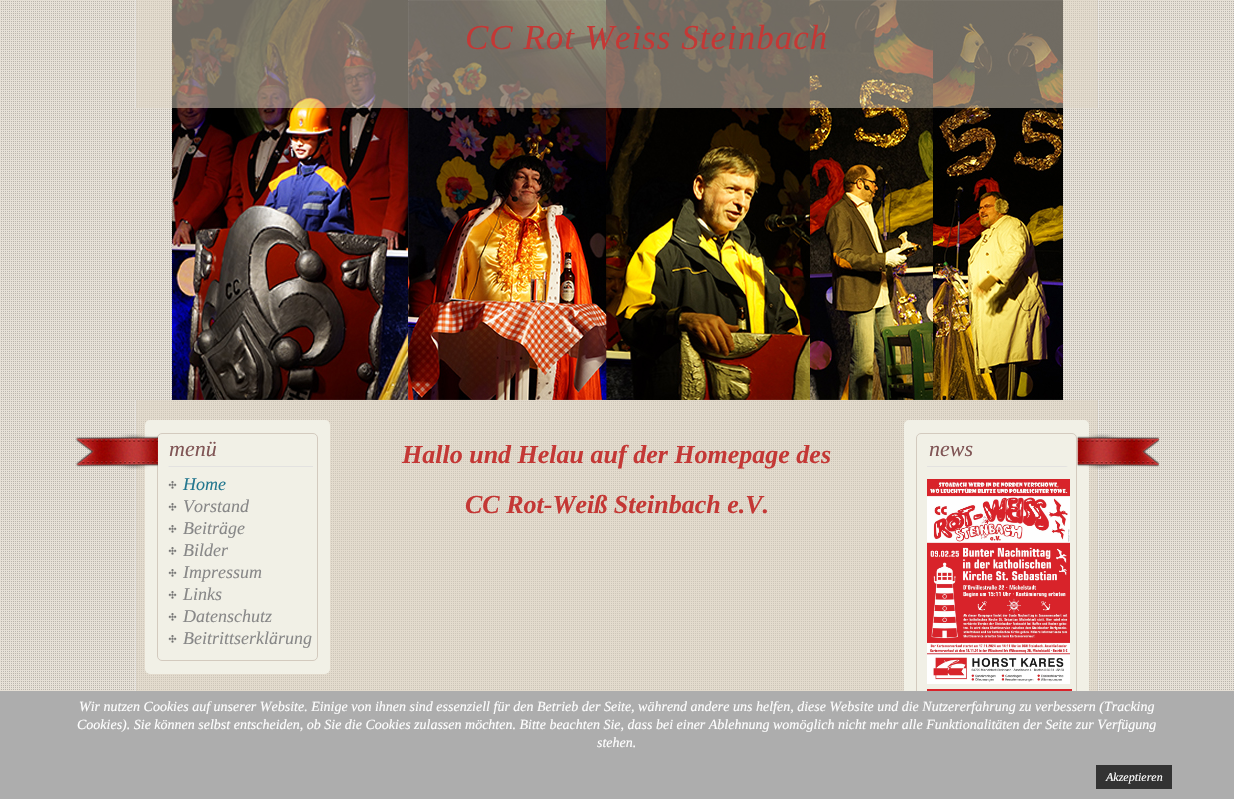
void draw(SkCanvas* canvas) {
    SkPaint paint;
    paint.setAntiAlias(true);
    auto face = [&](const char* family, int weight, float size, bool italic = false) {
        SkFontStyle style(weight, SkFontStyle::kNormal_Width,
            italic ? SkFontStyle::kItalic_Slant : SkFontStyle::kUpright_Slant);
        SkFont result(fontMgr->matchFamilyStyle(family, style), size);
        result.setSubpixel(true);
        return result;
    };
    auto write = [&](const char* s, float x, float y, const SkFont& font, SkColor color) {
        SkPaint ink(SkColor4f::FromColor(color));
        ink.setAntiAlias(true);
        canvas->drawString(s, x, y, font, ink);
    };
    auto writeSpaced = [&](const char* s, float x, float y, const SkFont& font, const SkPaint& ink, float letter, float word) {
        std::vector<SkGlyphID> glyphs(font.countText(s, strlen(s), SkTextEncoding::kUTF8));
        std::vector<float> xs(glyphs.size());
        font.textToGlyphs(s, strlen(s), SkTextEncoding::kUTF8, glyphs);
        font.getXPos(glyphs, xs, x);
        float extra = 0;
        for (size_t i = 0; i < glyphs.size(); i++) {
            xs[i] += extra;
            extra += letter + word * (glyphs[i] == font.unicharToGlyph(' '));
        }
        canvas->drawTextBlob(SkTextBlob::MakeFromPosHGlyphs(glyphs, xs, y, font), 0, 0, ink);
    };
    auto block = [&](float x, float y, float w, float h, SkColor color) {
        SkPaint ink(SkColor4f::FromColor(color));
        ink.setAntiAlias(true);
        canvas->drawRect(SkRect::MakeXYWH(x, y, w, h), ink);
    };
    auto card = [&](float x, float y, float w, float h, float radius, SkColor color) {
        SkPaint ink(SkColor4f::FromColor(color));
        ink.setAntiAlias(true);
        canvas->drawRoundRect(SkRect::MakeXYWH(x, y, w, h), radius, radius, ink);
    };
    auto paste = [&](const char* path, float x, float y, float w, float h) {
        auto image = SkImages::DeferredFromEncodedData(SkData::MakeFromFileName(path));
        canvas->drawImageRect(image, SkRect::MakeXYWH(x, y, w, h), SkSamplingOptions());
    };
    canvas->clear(SK_ColorWHITE);
    paste("pic1.png", 0, 0, 1234, 691);
    paste("pic2.png", 172, 0, 891, 400);
    paste("pic3.png", 135, 0, 964, 108);
    auto kFont1 = face("Liberation Serif", 400, 35, true);
    paint.setColor(SkColorSetRGB(196, 56, 53));
    writeSpaced("CC Rot Weiss Steinbach", 465, 49, kFont1, paint, 1, 0);
    paste("pic4.png", 135, 400, 964, 291);
    card(145, 420, 185, 254, 5, SkColorSetRGB(241, 240, 230));
    paint.setStyle(SkPaint::kStroke_Style);
    paint.setStrokeWidth(1);
    paint.setColor(SkColorSetRGB(211, 202, 190));
    canvas->drawRoundRect(SkRect::MakeXYWH(157.5f, 433.5f, 160, 227), 4.5f, 4.5f, paint);
    paste("pic5.png", 75, 434, 238, 35);
    auto kFont2 = face("Liberation Serif", 400, 22, true);
    write("menü", 169, 456, kFont2, SkColorSetRGB(128, 85, 85));
    paste("pic6.png", 168, 481, 9, 8);
    auto kFont3 = face("Liberation Serif", 400, 18, true);
    write("Home", 183, 490, kFont3, SkColorSetRGB(35, 119, 143));
    paste("pic6.png", 168, 503, 9, 8);
    write("Vorstand", 183, 512, kFont3, SkColorSetRGB(136, 136, 136));
    paste("pic6.png", 168, 525, 9, 8);
    write("Beiträge", 183, 534, kFont3, SkColorSetRGB(136, 136, 136));
    paste("pic6.png", 168, 547, 9, 8);
    write("Bilder", 183, 556, kFont3, SkColorSetRGB(136, 136, 136));
    paste("pic6.png", 168, 569, 9, 8);
    write("Impressum", 183, 578, kFont3, SkColorSetRGB(136, 136, 136));
    paste("pic6.png", 168, 591, 9, 8);
    write("Links", 183, 600, kFont3, SkColorSetRGB(136, 136, 136));
    paste("pic6.png", 168, 613, 9, 8);
    write("Datenschutz", 183, 622, kFont3, SkColorSetRGB(136, 136, 136));
    paste("pic6.png", 168, 635, 9, 8);
    write("Beitrittserklärung", 183, 644, kFont3, SkColorSetRGB(136, 136, 136));
    auto kFont4 = face("Liberation Serif", 700, 26, true);
    write("Hallo und Helau auf der Homepage des", 402, 463, kFont4, SkColorSetRGB(196, 56, 53));
    write("CC Rot-Weiß Steinbach e.V.", 465, 513, kFont4, SkColorSetRGB(196, 56, 53));
    card(904, 420, 185, 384, 5, SkColorSetRGB(241, 240, 230));
    canvas->drawRoundRect(SkRect::MakeXYWH(916.5f, 433.5f, 160, 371), 4.5f, 4.5f, paint);
    paste("pic7.png", 927, 434, 232, 35);
    write("news", 929, 456, kFont2, SkColorSetRGB(128, 85, 85));
    paste("pic8.png", 927, 479, 143, 205);
    paste("pic9.png", 927, 689, 145, 2);
    block(0, 691, 1234, 108, SkColorSetRGB(173, 173, 173));
    auto kFont5 = face("Liberation Serif", 400, 14, true);
    write("Wir nutzen Cookies auf unserer Website. Einige von ihnen sind essenziell für den Betrieb der Seite, während andere uns helfen, diese Website und die Nutzererfahrung zu verbessern (Tracking", 79, 711, kFont5, SK_ColorWHITE);
    write("Cookies). Sie können selbst entscheiden, ob Sie die Cookies zulassen möchten. Bitte beachten Sie, dass bei einer Ablehnung womöglich nicht mehr alle Funktionalitäten der Seite zur Verfügung", 77, 729, kFont5, SK_ColorWHITE);
    write("stehen.", 597, 747, kFont5, SK_ColorWHITE);
    block(1096, 765, 76, 24, SkColorSetRGB(51, 51, 51));
    auto kFont6 = face("Liberation Serif", 400, 12, true);
    write("Akzeptieren", 1106, 781, kFont6, SK_ColorWHITE);
}
